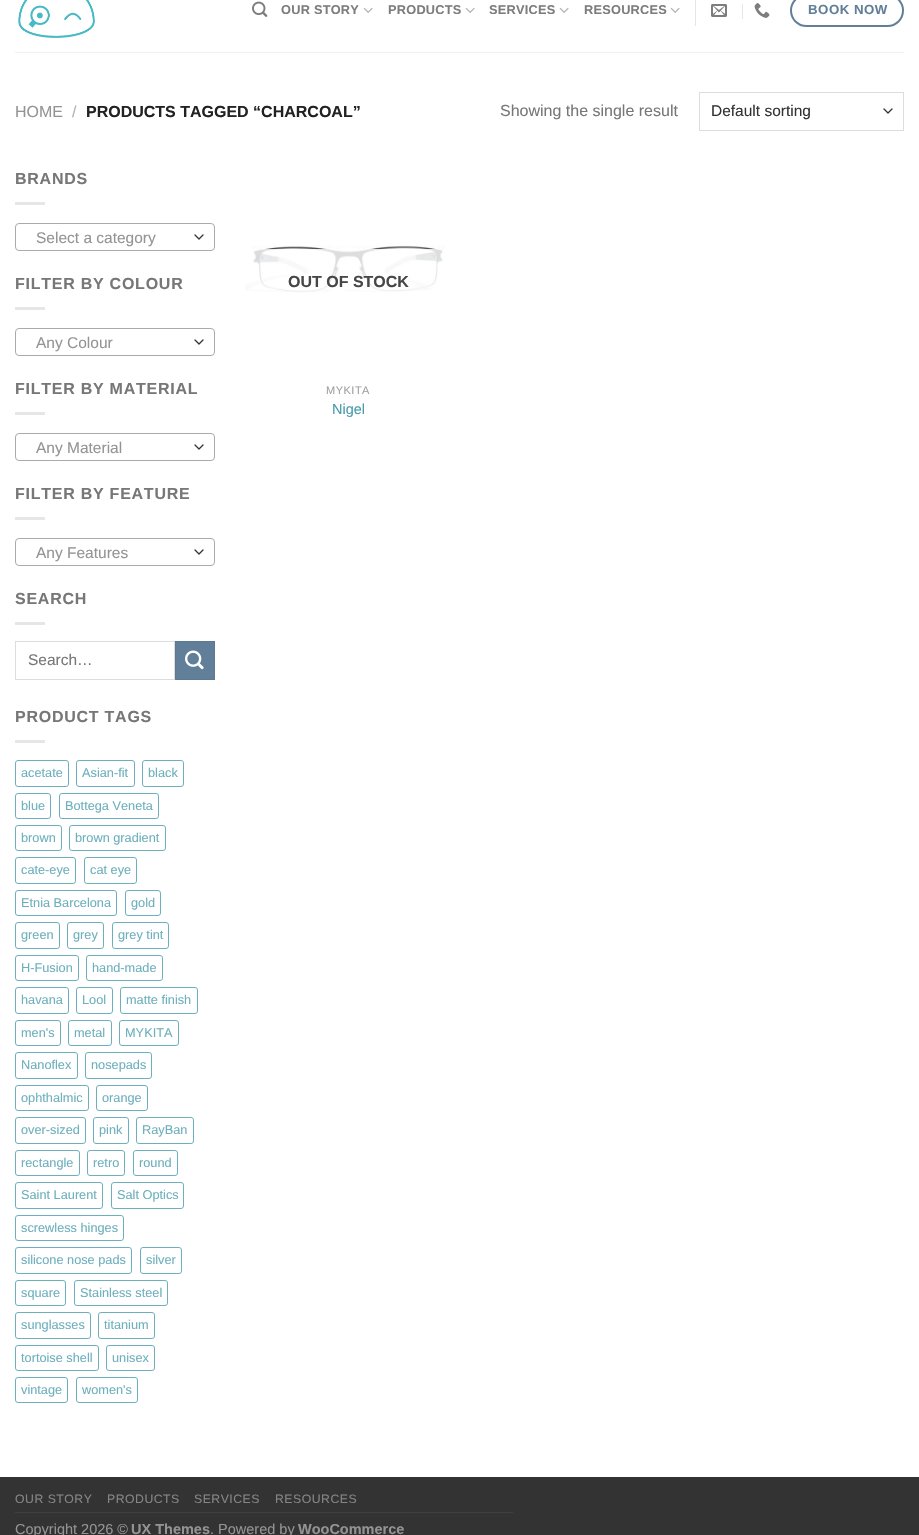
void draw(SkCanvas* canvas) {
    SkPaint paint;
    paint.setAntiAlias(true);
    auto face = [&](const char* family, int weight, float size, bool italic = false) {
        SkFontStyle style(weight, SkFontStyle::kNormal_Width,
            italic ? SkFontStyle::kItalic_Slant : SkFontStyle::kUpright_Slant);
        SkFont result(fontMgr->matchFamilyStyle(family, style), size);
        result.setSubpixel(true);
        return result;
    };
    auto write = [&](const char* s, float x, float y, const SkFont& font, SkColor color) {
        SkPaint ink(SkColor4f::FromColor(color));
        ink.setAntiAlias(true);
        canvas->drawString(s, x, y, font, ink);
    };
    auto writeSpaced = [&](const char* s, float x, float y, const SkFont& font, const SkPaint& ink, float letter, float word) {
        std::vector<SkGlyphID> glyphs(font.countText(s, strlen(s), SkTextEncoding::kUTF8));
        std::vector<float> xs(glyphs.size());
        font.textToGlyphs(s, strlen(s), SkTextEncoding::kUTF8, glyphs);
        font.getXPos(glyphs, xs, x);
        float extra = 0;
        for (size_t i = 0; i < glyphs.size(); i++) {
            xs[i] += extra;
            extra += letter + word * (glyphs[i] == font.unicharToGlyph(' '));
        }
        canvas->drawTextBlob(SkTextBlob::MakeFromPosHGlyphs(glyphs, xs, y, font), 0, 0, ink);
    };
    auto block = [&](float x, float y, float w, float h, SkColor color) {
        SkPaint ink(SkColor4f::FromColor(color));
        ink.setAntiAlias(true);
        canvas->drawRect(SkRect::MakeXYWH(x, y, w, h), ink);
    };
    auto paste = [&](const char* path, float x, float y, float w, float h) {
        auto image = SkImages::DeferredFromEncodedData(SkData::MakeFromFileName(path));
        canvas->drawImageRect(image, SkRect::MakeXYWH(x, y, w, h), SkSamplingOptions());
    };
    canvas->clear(SK_ColorWHITE);
    paste("pic1.png", 18, 0, 77, 38);
    paste("pic2.png", 252, 1, 16, 16);
    auto kFont1 = face("Liberation Sans", 700, 12.75f);
    paint.setColor(SkColorSetRGB(125, 125, 125));
    writeSpaced("OUR STORY", 281, 14, kFont1, paint, 0.25f, 0);
    paste("pic3.png", 363, 7, 10, 6);
    writeSpaced("PRODUCTS", 388, 14, kFont1, paint, 0.25f, 0);
    paste("pic3.png", 465, 7, 10, 6);
    writeSpaced("SERVICES", 489, 14, kFont1, paint, 0.25f, 0);
    paste("pic3.png", 559, 7, 10, 6);
    writeSpaced("RESOURCES", 584, 14, kFont1, paint, 0.25f, 0);
    paste("pic3.png", 670, 7, 10, 6);
    block(695, 0, 1, 26, SkColorSetRGB(230, 230, 230));
    paste("pic4.png", 711, 4, 16, 13);
    block(742, 4, 1, 15, SkColorSetRGB(230, 230, 230));
    paste("pic5.png", 754, 3, 16, 15);
    paint.setStyle(SkPaint::kStroke_Style);
    paint.setStrokeWidth(2);
    paint.setColor(SkColorSetRGB(98, 127, 154));
    canvas->drawRoundRect(SkRect::MakeXYWH(791, -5, 112, 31), 15.5f, 15.5f, paint);
    auto kFont2 = face("Liberation Sans", 700, 13.25f);
    paint.setStyle(SkPaint::kFill_Style);
    writeSpaced("BOOK NOW", 808, 14, kFont2, paint, 0.5f, 0);
    block(15, 52, 889, 1, SkColorSetRGB(241, 241, 241));
    auto kFont3 = face("Liberation Sans", 400, 16);
    write("HOME", 15, 117, kFont3, SkColorSetRGB(148, 148, 148));
    write("/", 72, 117, kFont3, SkColorSetRGB(178, 178, 178));
    auto kFont4 = face("Liberation Sans", 700, 16);
    write("PRODUCTS TAGGED “CHARCOAL”", 86, 117, kFont4, SkColorSetRGB(34, 34, 34));
    write("Showing the single result", 500, 116, kFont3, SkColorSetRGB(119, 119, 119));
    paint.setStyle(SkPaint::kStroke_Style);
    paint.setStrokeWidth(1.3f);
    paint.setStrokeCap(SkPaint::kRound_Cap);
    paint.setStrokeJoin(SkPaint::kRound_Join);
    paint.setColor(SkColorSetRGB(51, 51, 51));
    canvas->drawPath(SkPathBuilder().moveTo(884, 109).lineTo(888, 113).lineTo(892, 109).detach(), paint);
    paint.setStrokeWidth(1);
    paint.setStrokeCap(SkPaint::kButt_Cap);
    paint.setStrokeJoin(SkPaint::kMiter_Join);
    paint.setColor(SkColorSetRGB(221, 221, 221));
    canvas->drawRect(SkRect::MakeXYWH(699.5f, 92.5f, 204, 38), paint);
    auto kFont5 = face("Liberation Sans", 400, 15.5f);
    write("Default sorting", 711, 116, kFont5, SkColorSetRGB(51, 51, 51));
    paint.setStyle(SkPaint::kFill_Style);
    paint.setColor(SkColorSetRGB(119, 119, 119));
    writeSpaced("BRANDS", 15, 184, kFont4, paint, 0.75f, 0);
    block(15, 202, 30, 3, SkColorSetRGB(230, 230, 230));
    paint.setStyle(SkPaint::kStroke_Style);
    paint.setStrokeWidth(1.3f);
    paint.setStrokeCap(SkPaint::kRound_Cap);
    paint.setStrokeJoin(SkPaint::kRound_Join);
    paint.setColor(SkColorSetRGB(51, 51, 51));
    canvas->drawPath(SkPathBuilder().moveTo(195, 235).lineTo(199, 239).lineTo(203, 235).detach(), paint);
    paint.setStrokeWidth(1);
    paint.setStrokeCap(SkPaint::kButt_Cap);
    paint.setStrokeJoin(SkPaint::kMiter_Join);
    paint.setColor(SkColorSetRGB(170, 170, 170));
    canvas->drawRoundRect(SkRect::MakeXYWH(15.5f, 223.5f, 199, 27), 3.5f, 3.5f, paint);
    write("Select a category", 36, 243, kFont5, SkColorSetRGB(148, 148, 148));
    paint.setStyle(SkPaint::kFill_Style);
    paint.setColor(SkColorSetRGB(119, 119, 119));
    writeSpaced("FILTER BY COLOUR", 15, 289, kFont4, paint, 0.75f, 0);
    block(15, 307, 30, 3, SkColorSetRGB(230, 230, 230));
    paint.setStyle(SkPaint::kStroke_Style);
    paint.setStrokeWidth(1.3f);
    paint.setStrokeCap(SkPaint::kRound_Cap);
    paint.setStrokeJoin(SkPaint::kRound_Join);
    paint.setColor(SkColorSetRGB(51, 51, 51));
    canvas->drawPath(SkPathBuilder().moveTo(195, 340).lineTo(199, 344).lineTo(203, 340).detach(), paint);
    paint.setStrokeWidth(1);
    paint.setStrokeCap(SkPaint::kButt_Cap);
    paint.setStrokeJoin(SkPaint::kMiter_Join);
    paint.setColor(SkColorSetRGB(170, 170, 170));
    canvas->drawRoundRect(SkRect::MakeXYWH(15.5f, 328.5f, 199, 27), 3.5f, 3.5f, paint);
    write("Any Colour", 36, 348, kFont5, SkColorSetRGB(148, 148, 148));
    paint.setStyle(SkPaint::kFill_Style);
    paint.setColor(SkColorSetRGB(119, 119, 119));
    writeSpaced("FILTER BY MATERIAL", 15, 394, kFont4, paint, 0.75f, 0);
    block(15, 412, 30, 3, SkColorSetRGB(230, 230, 230));
    paint.setStyle(SkPaint::kStroke_Style);
    paint.setStrokeWidth(1.3f);
    paint.setStrokeCap(SkPaint::kRound_Cap);
    paint.setStrokeJoin(SkPaint::kRound_Join);
    paint.setColor(SkColorSetRGB(51, 51, 51));
    canvas->drawPath(SkPathBuilder().moveTo(195, 445).lineTo(199, 449).lineTo(203, 445).detach(), paint);
    paint.setStrokeWidth(1);
    paint.setStrokeCap(SkPaint::kButt_Cap);
    paint.setStrokeJoin(SkPaint::kMiter_Join);
    paint.setColor(SkColorSetRGB(170, 170, 170));
    canvas->drawRoundRect(SkRect::MakeXYWH(15.5f, 433.5f, 199, 27), 3.5f, 3.5f, paint);
    write("Any Material", 36, 453, kFont5, SkColorSetRGB(148, 148, 148));
    paint.setStyle(SkPaint::kFill_Style);
    paint.setColor(SkColorSetRGB(119, 119, 119));
    writeSpaced("FILTER BY FEATURE", 15, 499, kFont4, paint, 0.75f, 0);
    block(15, 517, 30, 3, SkColorSetRGB(230, 230, 230));
    paint.setStyle(SkPaint::kStroke_Style);
    paint.setStrokeWidth(1.3f);
    paint.setStrokeCap(SkPaint::kRound_Cap);
    paint.setStrokeJoin(SkPaint::kRound_Join);
    paint.setColor(SkColorSetRGB(51, 51, 51));
    canvas->drawPath(SkPathBuilder().moveTo(195, 550).lineTo(199, 554).lineTo(203, 550).detach(), paint);
    paint.setStrokeWidth(1);
    paint.setStrokeCap(SkPaint::kButt_Cap);
    paint.setStrokeJoin(SkPaint::kMiter_Join);
    paint.setColor(SkColorSetRGB(170, 170, 170));
    canvas->drawRoundRect(SkRect::MakeXYWH(15.5f, 538.5f, 199, 27), 3.5f, 3.5f, paint);
    write("Any Features", 36, 558, kFont5, SkColorSetRGB(148, 148, 148));
    paint.setStyle(SkPaint::kFill_Style);
    paint.setColor(SkColorSetRGB(119, 119, 119));
    writeSpaced("SEARCH", 15, 604, kFont4, paint, 0.75f, 0);
    block(15, 622, 30, 3, SkColorSetRGB(230, 230, 230));
    paint.setStyle(SkPaint::kStroke_Style);
    paint.setColor(SkColorSetRGB(221, 221, 221));
    canvas->drawRect(SkRect::MakeXYWH(15.5f, 641.5f, 159, 38), paint);
    write("Search…", 28, 665, kFont5, SkColorSetRGB(119, 119, 119));
    paint.setStyle(SkPaint::kFill_Style);
    paint.setColor(SkColorSetRGB(98, 127, 154));
    canvas->drawRect(SkRect::MakeXYWH(175.5f, 641.5f, 39, 38), paint);
    paint.setStyle(SkPaint::kStroke_Style);
    paint.setColor(SkColorSetRGB(93, 121, 146));
    canvas->drawRect(SkRect::MakeXYWH(175.5f, 641.5f, 39, 38), paint);
    paste("pic6.png", 185, 650, 19, 20);
    paint.setStyle(SkPaint::kFill_Style);
    paint.setColor(SkColorSetRGB(119, 119, 119));
    writeSpaced("PRODUCT TAGS", 15, 722, kFont4, paint, 0.75f, 0);
    block(15, 740, 30, 3, SkColorSetRGB(230, 230, 230));
    paint.setStyle(SkPaint::kStroke_Style);
    paint.setColor(SkColorSetRGB(109, 176, 189));
    canvas->drawRoundRect(SkRect::MakeXYWH(15.5f, 760.5f, 53, 26), 2.5f, 2.5f, paint);
    auto kFont6 = face("Liberation Sans", 400, 12.75f);
    write("acetate", 21, 777, kFont6, SkColorSetRGB(109, 176, 189));
    canvas->drawRoundRect(SkRect::MakeXYWH(76.5f, 760.5f, 58, 26), 2.5f, 2.5f, paint);
    write("Asian-fit", 82, 777, kFont6, SkColorSetRGB(109, 176, 189));
    canvas->drawRoundRect(SkRect::MakeXYWH(142.5f, 760.5f, 41, 26), 2.5f, 2.5f, paint);
    write("black", 148, 777, kFont6, SkColorSetRGB(109, 176, 189));
    canvas->drawRoundRect(SkRect::MakeXYWH(15.5f, 793.5f, 35, 25), 2.5f, 2.5f, paint);
    write("blue", 21, 810, kFont6, SkColorSetRGB(109, 176, 189));
    canvas->drawRoundRect(SkRect::MakeXYWH(59.5f, 793.5f, 99, 25), 2.5f, 2.5f, paint);
    write("Bottega Veneta", 65, 810, kFont6, SkColorSetRGB(109, 176, 189));
    canvas->drawRoundRect(SkRect::MakeXYWH(15.5f, 825.5f, 46, 25), 2.5f, 2.5f, paint);
    write("brown", 21, 842, kFont6, SkColorSetRGB(109, 176, 189));
    canvas->drawRoundRect(SkRect::MakeXYWH(69.5f, 825.5f, 96, 25), 2.5f, 2.5f, paint);
    write("brown gradient", 75, 842, kFont6, SkColorSetRGB(109, 176, 189));
    canvas->drawRoundRect(SkRect::MakeXYWH(15.5f, 857.5f, 60, 26), 2.5f, 2.5f, paint);
    write("cate-eye", 21, 874, kFont6, SkColorSetRGB(109, 176, 189));
    canvas->drawRoundRect(SkRect::MakeXYWH(84.5f, 857.5f, 52, 26), 2.5f, 2.5f, paint);
    write("cat eye", 90, 874, kFont6, SkColorSetRGB(109, 176, 189));
    canvas->drawRoundRect(SkRect::MakeXYWH(15.5f, 890.5f, 101, 25), 2.5f, 2.5f, paint);
    write("Etnia Barcelona", 21, 907, kFont6, SkColorSetRGB(109, 176, 189));
    canvas->drawRoundRect(SkRect::MakeXYWH(125.5f, 890.5f, 35, 25), 2.5f, 2.5f, paint);
    write("gold", 131, 907, kFont6, SkColorSetRGB(109, 176, 189));
    canvas->drawRoundRect(SkRect::MakeXYWH(15.5f, 922.5f, 44, 26), 2.5f, 2.5f, paint);
    write("green", 21, 939, kFont6, SkColorSetRGB(109, 176, 189));
    canvas->drawRoundRect(SkRect::MakeXYWH(67.5f, 922.5f, 36, 26), 2.5f, 2.5f, paint);
    write("grey", 73, 939, kFont6, SkColorSetRGB(109, 176, 189));
    canvas->drawRoundRect(SkRect::MakeXYWH(112.5f, 922.5f, 56, 26), 2.5f, 2.5f, paint);
    write("grey tint", 118, 939, kFont6, SkColorSetRGB(109, 176, 189));
    canvas->drawRoundRect(SkRect::MakeXYWH(15.5f, 955.5f, 63, 25), 2.5f, 2.5f, paint);
    write("H-Fusion", 21, 972, kFont6, SkColorSetRGB(109, 176, 189));
    canvas->drawRoundRect(SkRect::MakeXYWH(86.5f, 955.5f, 76, 25), 2.5f, 2.5f, paint);
    write("hand-made", 92, 972, kFont6, SkColorSetRGB(109, 176, 189));
    canvas->drawRoundRect(SkRect::MakeXYWH(15.5f, 987.5f, 53, 26), 2.5f, 2.5f, paint);
    write("havana", 21, 1004, kFont6, SkColorSetRGB(109, 176, 189));
    canvas->drawRoundRect(SkRect::MakeXYWH(76.5f, 987.5f, 36, 26), 2.5f, 2.5f, paint);
    write("Lool", 82, 1004, kFont6, SkColorSetRGB(109, 176, 189));
    canvas->drawRoundRect(SkRect::MakeXYWH(120.5f, 987.5f, 77, 26), 2.5f, 2.5f, paint);
    write("matte finish", 126, 1004, kFont6, SkColorSetRGB(109, 176, 189));
    canvas->drawRoundRect(SkRect::MakeXYWH(15.5f, 1020.5f, 45, 25), 2.5f, 2.5f, paint);
    write("men's", 21, 1037, kFont6, SkColorSetRGB(109, 176, 189));
    canvas->drawRoundRect(SkRect::MakeXYWH(68.5f, 1020.5f, 43, 25), 2.5f, 2.5f, paint);
    write("metal", 74, 1037, kFont6, SkColorSetRGB(109, 176, 189));
    canvas->drawRoundRect(SkRect::MakeXYWH(119.5f, 1020.5f, 59, 25), 2.5f, 2.5f, paint);
    write("MYKITA", 125, 1037, kFont6, SkColorSetRGB(109, 176, 189));
    canvas->drawRoundRect(SkRect::MakeXYWH(15.5f, 1052.5f, 62, 26), 2.5f, 2.5f, paint);
    write("Nanoflex", 21, 1069, kFont6, SkColorSetRGB(109, 176, 189));
    canvas->drawRoundRect(SkRect::MakeXYWH(85.5f, 1052.5f, 66, 26), 2.5f, 2.5f, paint);
    write("nosepads", 91, 1069, kFont6, SkColorSetRGB(109, 176, 189));
    canvas->drawRoundRect(SkRect::MakeXYWH(15.5f, 1085.5f, 73, 25), 2.5f, 2.5f, paint);
    write("ophthalmic", 21, 1102, kFont6, SkColorSetRGB(109, 176, 189));
    canvas->drawRoundRect(SkRect::MakeXYWH(96.5f, 1085.5f, 51, 25), 2.5f, 2.5f, paint);
    write("orange", 102, 1102, kFont6, SkColorSetRGB(109, 176, 189));
    canvas->drawRoundRect(SkRect::MakeXYWH(15.5f, 1117.5f, 70, 26), 2.5f, 2.5f, paint);
    write("over-sized", 21, 1134, kFont6, SkColorSetRGB(109, 176, 189));
    canvas->drawRoundRect(SkRect::MakeXYWH(93.5f, 1117.5f, 35, 26), 2.5f, 2.5f, paint);
    write("pink", 99, 1134, kFont6, SkColorSetRGB(109, 176, 189));
    canvas->drawRoundRect(SkRect::MakeXYWH(136.5f, 1117.5f, 57, 26), 2.5f, 2.5f, paint);
    write("RayBan", 142, 1134, kFont6, SkColorSetRGB(109, 176, 189));
    canvas->drawRoundRect(SkRect::MakeXYWH(15.5f, 1150.5f, 64, 25), 2.5f, 2.5f, paint);
    write("rectangle", 21, 1167, kFont6, SkColorSetRGB(109, 176, 189));
    canvas->drawRoundRect(SkRect::MakeXYWH(87.5f, 1150.5f, 37, 25), 2.5f, 2.5f, paint);
    write("retro", 93, 1167, kFont6, SkColorSetRGB(109, 176, 189));
    canvas->drawRoundRect(SkRect::MakeXYWH(133.5f, 1150.5f, 44, 25), 2.5f, 2.5f, paint);
    write("round", 139, 1167, kFont6, SkColorSetRGB(109, 176, 189));
    canvas->drawRoundRect(SkRect::MakeXYWH(15.5f, 1182.5f, 87, 26), 2.5f, 2.5f, paint);
    write("Saint Laurent", 21, 1199, kFont6, SkColorSetRGB(109, 176, 189));
    canvas->drawRoundRect(SkRect::MakeXYWH(111.5f, 1182.5f, 72, 26), 2.5f, 2.5f, paint);
    write("Salt Optics", 117, 1199, kFont6, SkColorSetRGB(109, 176, 189));
    canvas->drawRoundRect(SkRect::MakeXYWH(15.5f, 1215.5f, 108, 25), 2.5f, 2.5f, paint);
    write("screwless hinges", 21, 1232, kFont6, SkColorSetRGB(109, 176, 189));
    canvas->drawRoundRect(SkRect::MakeXYWH(15.5f, 1247.5f, 116, 26), 2.5f, 2.5f, paint);
    write("silicone nose pads", 21, 1264, kFont6, SkColorSetRGB(109, 176, 189));
    canvas->drawRoundRect(SkRect::MakeXYWH(140.5f, 1247.5f, 41, 26), 2.5f, 2.5f, paint);
    write("silver", 146, 1264, kFont6, SkColorSetRGB(109, 176, 189));
    canvas->drawRoundRect(SkRect::MakeXYWH(15.5f, 1280.5f, 50, 25), 2.5f, 2.5f, paint);
    write("square", 21, 1297, kFont6, SkColorSetRGB(109, 176, 189));
    canvas->drawRoundRect(SkRect::MakeXYWH(74.5f, 1280.5f, 93, 25), 2.5f, 2.5f, paint);
    write("Stainless steel", 80, 1297, kFont6, SkColorSetRGB(109, 176, 189));
    canvas->drawRoundRect(SkRect::MakeXYWH(15.5f, 1312.5f, 75, 26), 2.5f, 2.5f, paint);
    write("sunglasses", 21, 1329, kFont6, SkColorSetRGB(109, 176, 189));
    canvas->drawRoundRect(SkRect::MakeXYWH(98.5f, 1312.5f, 56, 26), 2.5f, 2.5f, paint);
    write("titanium", 104, 1329, kFont6, SkColorSetRGB(109, 176, 189));
    canvas->drawRoundRect(SkRect::MakeXYWH(15.5f, 1345.5f, 83, 25), 2.5f, 2.5f, paint);
    write("tortoise shell", 21, 1362, kFont6, SkColorSetRGB(109, 176, 189));
    canvas->drawRoundRect(SkRect::MakeXYWH(106.5f, 1345.5f, 48, 25), 2.5f, 2.5f, paint);
    write("unisex", 112, 1362, kFont6, SkColorSetRGB(109, 176, 189));
    canvas->drawRoundRect(SkRect::MakeXYWH(15.5f, 1377.5f, 52, 25), 2.5f, 2.5f, paint);
    write("vintage", 21, 1394, kFont6, SkColorSetRGB(109, 176, 189));
    canvas->drawRoundRect(SkRect::MakeXYWH(76.5f, 1377.5f, 61, 25), 2.5f, 2.5f, paint);
    write("women's", 82, 1394, kFont6, SkColorSetRGB(109, 176, 189));
    paste("pic7.png", 245, 245, 200, 48);
    write("OUT OF STOCK", 288, 287, kFont4, SkColorSetRGB(71, 71, 71));
    auto kFont7 = face("Liberation Sans", 400, 11);
    paint.setStyle(SkPaint::kFill_Style);
    paint.setColor(SkColorSetRGB(160, 160, 160));
    writeSpaced("MYKITA", 326, 394, kFont7, paint, 0.5f, 0);
    auto kFont8 = face("Liberation Sans", 400, 14.5f);
    write("Nigel", 332, 414, kFont8, SkColorSetRGB(72, 156, 173));
    block(0, 1477, 919, 58, SkColorSetRGB(51, 51, 51));
    block(15, 1512, 498, 1, SkColorSetRGB(64, 64, 64));
    auto kFont9 = face("Liberation Sans", 400, 12.25f);
    paint.setColor(SkColorSetRGB(133, 133, 133));
    writeSpaced("OUR STORY", 15, 1503, kFont9, paint, 0.5f, 0);
    writeSpaced("PRODUCTS", 107, 1503, kFont9, paint, 0.5f, 0);
    writeSpaced("SERVICES", 194, 1503, kFont9, paint, 0.5f, 0);
    writeSpaced("RESOURCES", 275, 1503, kFont9, paint, 0.5f, 0);
    write("Copyright 2026 ©", 15, 1534, kFont8, SkColorSetRGB(148, 148, 148));
    auto kFont10 = face("Liberation Sans", 700, 14.5f);
    write("UX Themes", 131, 1534, kFont10, SkColorSetRGB(148, 148, 148));
    write(". Powered by", 210, 1534, kFont8, SkColorSetRGB(148, 148, 148));
    write("WooCommerce", 298, 1534, kFont10, SkColorSetRGB(148, 148, 148));
}
